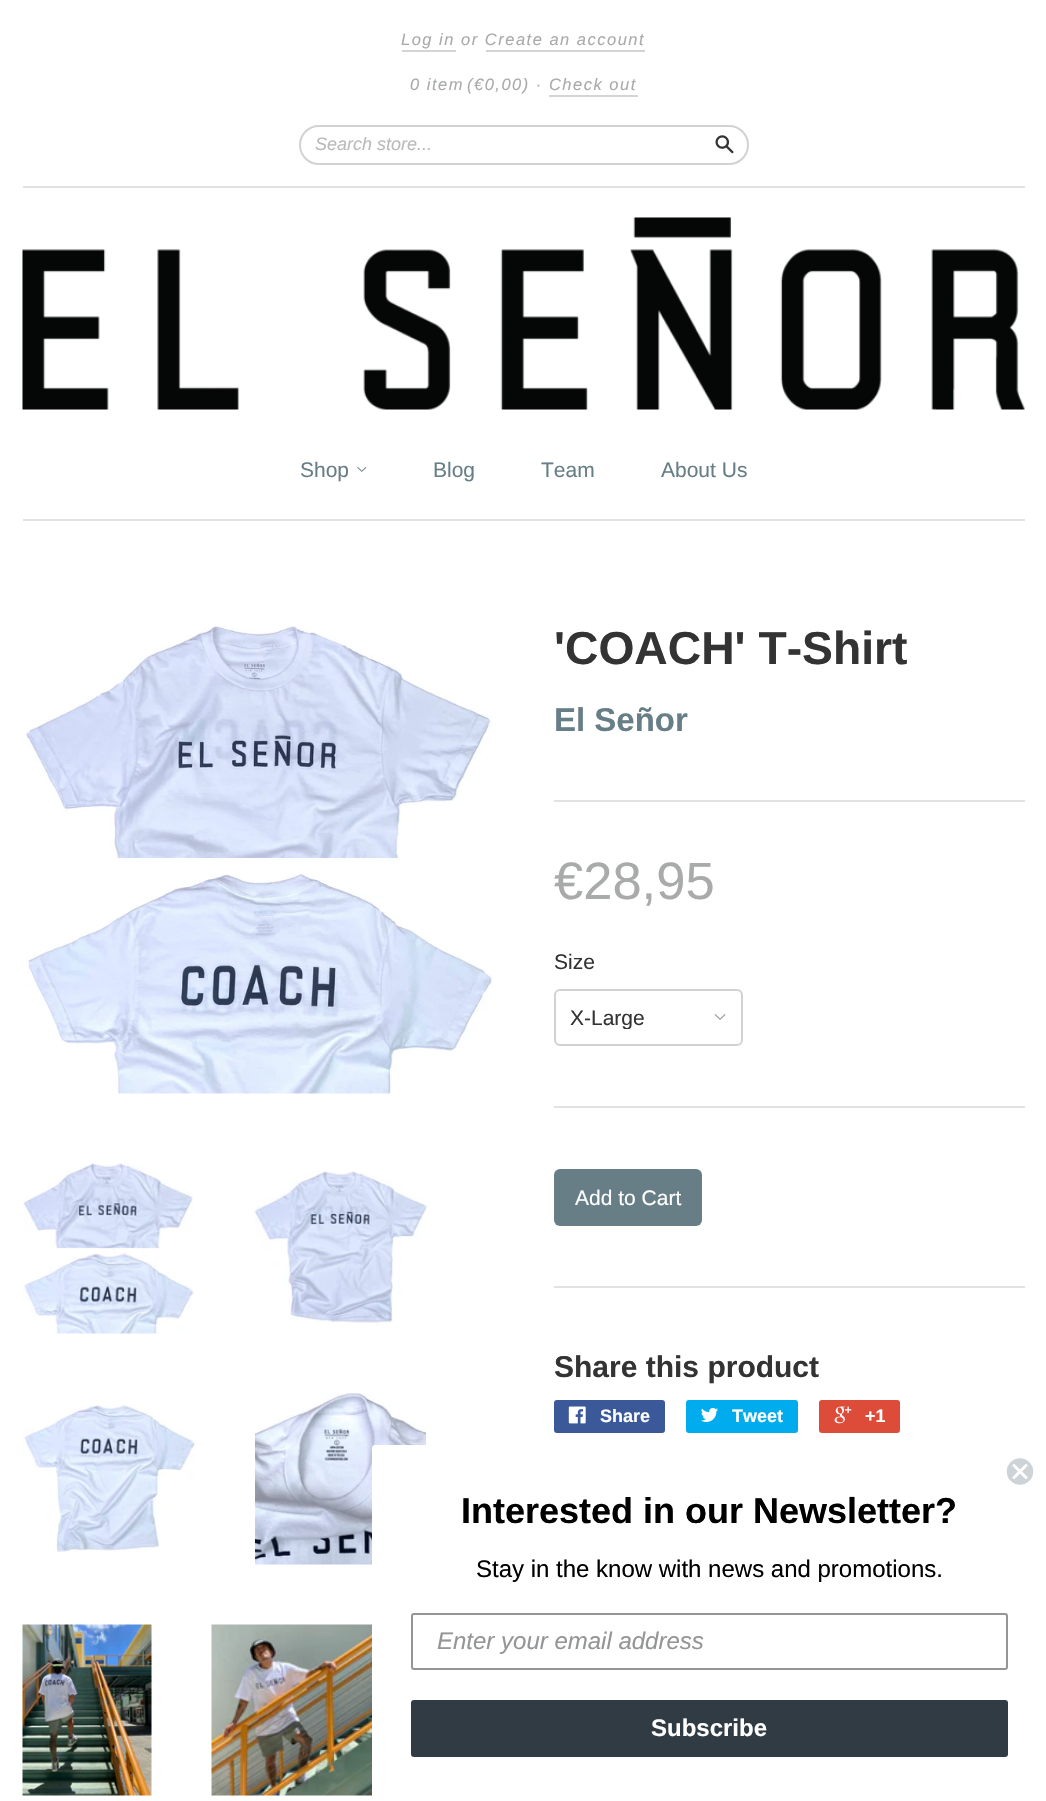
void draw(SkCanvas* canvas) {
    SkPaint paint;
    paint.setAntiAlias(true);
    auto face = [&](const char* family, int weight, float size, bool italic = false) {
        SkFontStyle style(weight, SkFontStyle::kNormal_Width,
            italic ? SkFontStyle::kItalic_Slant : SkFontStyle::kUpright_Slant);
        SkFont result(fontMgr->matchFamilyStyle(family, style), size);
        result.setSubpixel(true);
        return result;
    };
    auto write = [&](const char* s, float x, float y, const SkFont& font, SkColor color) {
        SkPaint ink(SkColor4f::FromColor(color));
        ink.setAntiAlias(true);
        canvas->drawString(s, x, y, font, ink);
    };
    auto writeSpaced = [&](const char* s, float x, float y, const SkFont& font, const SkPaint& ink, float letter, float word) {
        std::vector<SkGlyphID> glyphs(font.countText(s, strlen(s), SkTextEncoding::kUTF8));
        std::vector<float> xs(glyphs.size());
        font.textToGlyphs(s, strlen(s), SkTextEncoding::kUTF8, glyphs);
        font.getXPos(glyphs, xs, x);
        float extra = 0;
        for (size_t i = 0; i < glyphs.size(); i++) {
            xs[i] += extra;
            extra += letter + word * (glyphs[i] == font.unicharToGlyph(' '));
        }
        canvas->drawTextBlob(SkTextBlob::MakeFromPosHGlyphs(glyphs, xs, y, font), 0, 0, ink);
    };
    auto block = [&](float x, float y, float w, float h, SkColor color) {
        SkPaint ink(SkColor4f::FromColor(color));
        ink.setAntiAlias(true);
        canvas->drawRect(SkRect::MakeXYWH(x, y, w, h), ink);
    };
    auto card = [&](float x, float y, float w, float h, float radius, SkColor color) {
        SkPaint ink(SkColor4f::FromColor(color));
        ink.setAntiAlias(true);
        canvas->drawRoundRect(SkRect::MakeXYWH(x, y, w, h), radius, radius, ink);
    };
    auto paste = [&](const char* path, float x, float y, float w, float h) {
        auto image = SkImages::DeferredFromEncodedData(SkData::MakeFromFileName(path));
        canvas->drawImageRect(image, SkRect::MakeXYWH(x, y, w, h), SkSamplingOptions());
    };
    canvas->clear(SK_ColorWHITE);
    block(23, 519, 1002, 2, SkColorSetRGB(226, 226, 226));
    block(23, 186, 1002, 2, SkColorSetRGB(226, 226, 226));
    auto kFont1 = face("Liberation Sans", 400, 16.5f, true);
    paint.setColor(SkColorSetRGB(169, 170, 170));
    writeSpaced("Log in or Create an account", 401, 45, kFont1, paint, 1.5f, 0);
    block(402, 50, 54, 2, SkColorSetRGB(212, 212, 212));
    block(486, 50, 159, 2, SkColorSetRGB(212, 212, 212));
    writeSpaced("0 item", 410, 90, kFont1, paint, 1.5f, 0);
    writeSpaced("(€0,00) · Check out", 467, 90, kFont1, paint, 1.5f, 0);
    block(549, 95, 89, 2, SkColorSetRGB(212, 212, 212));
    paint.setStyle(SkPaint::kStroke_Style);
    paint.setStrokeWidth(2);
    paint.setColor(SkColorSetRGB(210, 210, 210));
    canvas->drawRoundRect(SkRect::MakeXYWH(300, 126, 448, 38), 19, 19, paint);
    auto kFont2 = face("Liberation Sans", 400, 18, true);
    write("Search store...", 315, 150, kFont2, SkColorSetRGB(187, 187, 187));
    paste("pic1.png", 715, 135, 19, 19);
    paste("pic2.png", 22, 217, 1003, 193);
    auto kFont3 = face("Liberation Sans", 400, 21);
    write("Shop", 300, 477, kFont3, SkColorSetRGB(103, 126, 135));
    paste("pic3.png", 357, 467, 10, 5);
    write("Blog", 433, 477, kFont3, SkColorSetRGB(103, 126, 135));
    write("Team", 541, 477, kFont3, SkColorSetRGB(103, 126, 135));
    write("About Us", 661, 477, kFont3, SkColorSetRGB(103, 126, 135));
    paste("pic4.png", 23, 626, 470, 468);
    paste("pic5.png", 23, 1163, 171, 171);
    paste("pic6.png", 253, 1171, 176, 154);
    paste("pic7.png", 22, 1404, 173, 148);
    paste("pic8.png", 255, 1393, 171, 172);
    paste("pic9.png", 22, 1624, 130, 172);
    paste("pic10.png", 211, 1624, 161, 172);
    auto kFont4 = face("Liberation Sans", 700, 46.25f);
    write("'COACH' T-Shirt", 554, 664, kFont4, SkColorSetRGB(51, 51, 51));
    auto kFont5 = face("Liberation Sans", 700, 33);
    write("El Señor", 554, 731, kFont5, SkColorSetRGB(103, 126, 135));
    block(554, 800, 471, 2, SkColorSetRGB(226, 226, 226));
    auto kFont6 = face("Liberation Sans", 400, 52.5f);
    write("€28,95", 554, 899, kFont6, SkColorSetRGB(169, 170, 170));
    write("Size", 554, 969, kFont3, SkColorSetRGB(51, 51, 51));
    paste("pic11.png", 714, 1014, 12, 6);
    canvas->drawRoundRect(SkRect::MakeXYWH(555, 990, 187, 55), 5, 5, paint);
    canvas->save();
    canvas->clipRect(SkRect::MakeXYWH(570, 1005, 129, 24));
    write("X-Large", 570, 1025, kFont3, SkColorSetRGB(51, 51, 51));
    canvas->restore();
    block(554, 1106, 471, 2, SkColorSetRGB(226, 226, 226));
    card(554, 1169, 148, 57, 6, SkColorSetRGB(103, 126, 135));
    write("Add to Cart", 575, 1205, kFont3, SK_ColorWHITE);
    block(554, 1286, 471, 2, SkColorSetRGB(226, 226, 226));
    auto kFont7 = face("Liberation Sans", 700, 30);
    write("Share this product", 554, 1377, kFont7, SkColorSetRGB(51, 51, 51));
    card(554, 1400, 111, 33, 3, SkColorSetRGB(59, 89, 152));
    paste("pic12.png", 568, 1406, 18, 18);
    auto kFont8 = face("Liberation Sans", 700, 18);
    write("Share", 600, 1422, kFont8, SK_ColorWHITE);
    card(686, 1400, 112, 33, 3, SkColorSetRGB(0, 172, 237));
    paste("pic13.png", 701, 1407, 17, 15);
    write("Tweet", 732, 1422, kFont8, SK_ColorWHITE);
    card(819, 1400, 81, 33, 3, SkColorSetRGB(221, 75, 57));
    paste("pic14.png", 834, 1406, 18, 18);
    write("+1", 865, 1422, kFont8, SK_ColorWHITE);
    card(372, 1445, 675, 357, 3, SK_ColorWHITE);
    paint.setStyle(SkPaint::kFill_Style);
    paint.setColor(SkColorSetRGB(206, 211, 216));
    canvas->drawCircle(1020, 1471.5f, 14, paint);
    canvas->save();
    canvas->clipRect(SkRect::MakeXYWH(1005, 1457, 30, 30));
    paint.setStyle(SkPaint::kStroke_Style);
    paint.setStrokeWidth(1.5f);
    paint.setColor(SK_ColorWHITE);
    canvas->drawCircle(1020, 1471.5f, 14, paint);
    canvas->restore();
    paint.setStrokeWidth(3);
    paint.setStrokeCap(SkPaint::kRound_Cap);
    paint.setStrokeJoin(SkPaint::kRound_Join);
    canvas->drawPath(SkPathBuilder().moveTo(1014, 1465.5f).lineTo(1026, 1477.5f).moveTo(1014, 1477.5f).lineTo(1026, 1465.5f).close().detach(), paint);
    auto kFont9 = face("Liberation Sans", 700, 36);
    write("Interested in our Newsletter?", 461, 1523, kFont9, SK_ColorBLACK);
    auto kFont10 = face("Liberation Sans", 400, 24);
    write("Stay in the know with news and promotions.", 476, 1577, kFont10, SK_ColorBLACK);
    paint.setStrokeWidth(2);
    paint.setStrokeCap(SkPaint::kButt_Cap);
    paint.setStrokeJoin(SkPaint::kMiter_Join);
    paint.setColor(SkColorSetRGB(148, 149, 150));
    canvas->drawRoundRect(SkRect::MakeXYWH(412, 1614, 595, 55), 2, 2, paint);
    auto kFont11 = face("Liberation Sans", 400, 24, true);
    write("Enter your email address", 437, 1649, kFont11, SkColorSetRGB(148, 149, 150));
    card(411, 1700, 597, 57, 3, SkColorSetRGB(48, 59, 67));
    auto kFont12 = face("Liberation Sans", 700, 24);
    write("Subscribe", 651, 1736, kFont12, SK_ColorWHITE);
}
